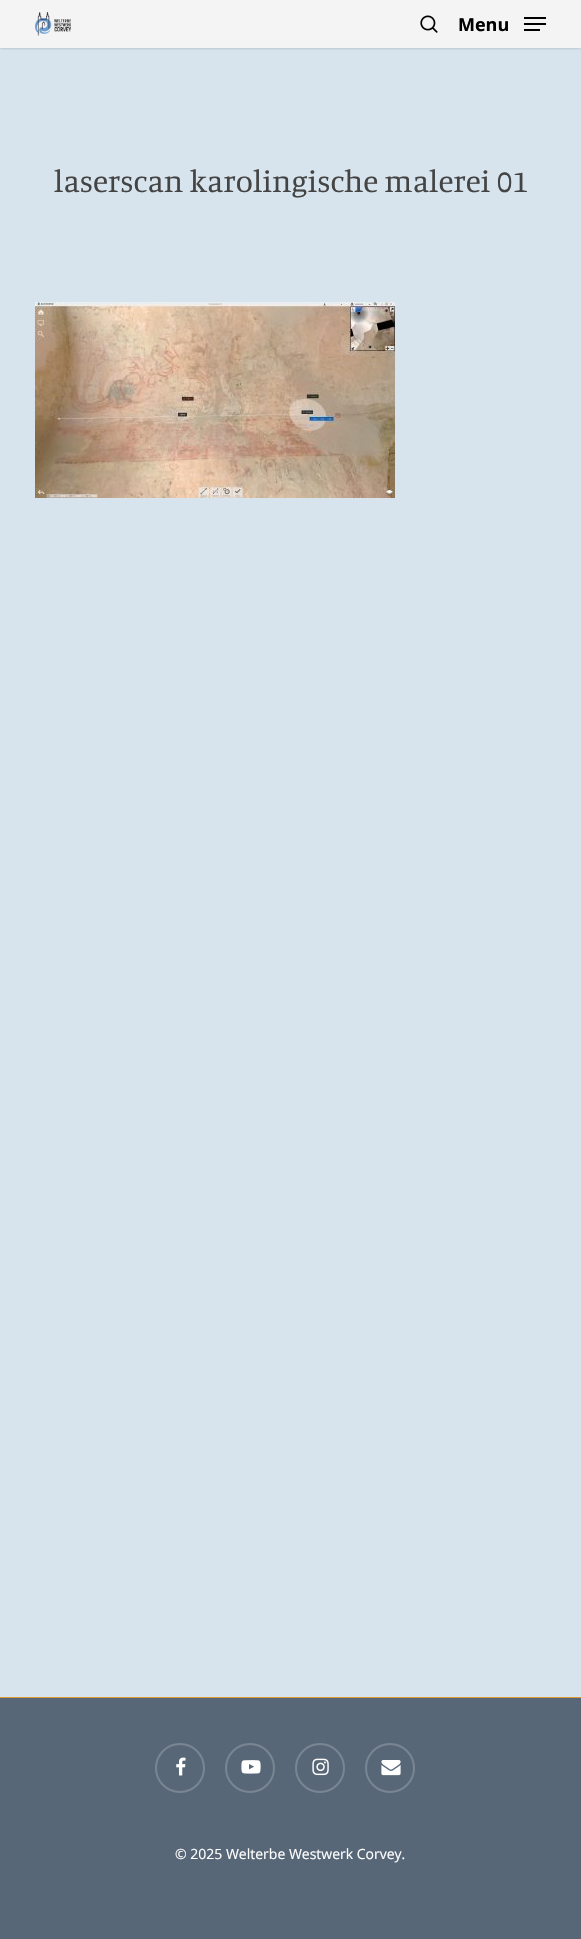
void draw(SkCanvas* canvas) {
    SkPaint paint;
    paint.setAntiAlias(true);
    auto face = [&](const char* family, int weight, float size, bool italic = false) {
        SkFontStyle style(weight, SkFontStyle::kNormal_Width,
            italic ? SkFontStyle::kItalic_Slant : SkFontStyle::kUpright_Slant);
        SkFont result(fontMgr->matchFamilyStyle(family, style), size);
        result.setSubpixel(true);
        return result;
    };
    auto write = [&](const char* s, float x, float y, const SkFont& font, SkColor color) {
        SkPaint ink(SkColor4f::FromColor(color));
        ink.setAntiAlias(true);
        canvas->drawString(s, x, y, font, ink);
    };
    auto block = [&](float x, float y, float w, float h, SkColor color) {
        SkPaint ink(SkColor4f::FromColor(color));
        ink.setAntiAlias(true);
        canvas->drawRect(SkRect::MakeXYWH(x, y, w, h), ink);
    };
    auto paste = [&](const char* path, float x, float y, float w, float h) {
        auto image = SkImages::DeferredFromEncodedData(SkData::MakeFromFileName(path));
        canvas->drawImageRect(image, SkRect::MakeXYWH(x, y, w, h), SkSamplingOptions());
    };
    canvas->clear(SkColorSetRGB(215, 228, 237));
    block(0, 0, 581, 48, SkColorSetRGB(244, 244, 244));
    canvas->save();
    canvas->clipRect(SkRect::MakeXYWH(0, 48, 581, 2));
    paint.setColor(SkColorSetARGB(56, 0, 0, 0));
    paint.setMaskFilter(SkMaskFilter::MakeBlur(kNormal_SkBlurStyle, 1.5f));
    canvas->drawRect(SkRect::MakeXYWH(0, 0, 581, 48), paint);
    paint.setMaskFilter(nullptr);
    canvas->restore();
    paste("pic1.png", 35, 12, 36, 24);
    paste("pic2.png", 420, 15, 18, 18);
    auto kFont1 = face("Open Sans", 700, 18);
    write("Menu", 458, 31, kFont1, SK_ColorBLACK);
    block(524, 17, 22, 2, SK_ColorBLACK);
    block(524, 29, 16, 2, SK_ColorBLACK);
    block(524, 23, 22, 2, SK_ColorBLACK);
    auto kFont2 = face("Manuale", 400, 31.25f);
    write("laserscan karolingische malerei 01", 54, 192, kFont2, SkColorSetRGB(68, 68, 68));
    paste("pic3.png", 35, 302, 360, 196);
    block(0, 1697, 581, 1, SkColorSetRGB(221, 153, 51));
    block(0, 1698, 581, 241, SkColorSetRGB(88, 103, 119));
    paste("pic4.png", 176, 1757, 10, 19);
    paint.setStyle(SkPaint::kStroke_Style);
    paint.setStrokeWidth(2);
    paint.setColor(SkColorSetRGB(121, 133, 146));
    canvas->drawCircle(180, 1768, 24, paint);
    paste("pic5.png", 241, 1760, 20, 14);
    canvas->drawCircle(250, 1768, 24, paint);
    paste("pic6.png", 312, 1758, 17, 18);
    canvas->drawCircle(320, 1768, 24, paint);
    paste("pic7.png", 381, 1760, 20, 16);
    canvas->drawCircle(390, 1768, 24, paint);
    auto kFont3 = face("Open Sans", 400, 14);
    write("© 2025 Welterbe Westwerk Corvey.", 175, 1859, kFont3, SK_ColorWHITE);
}
